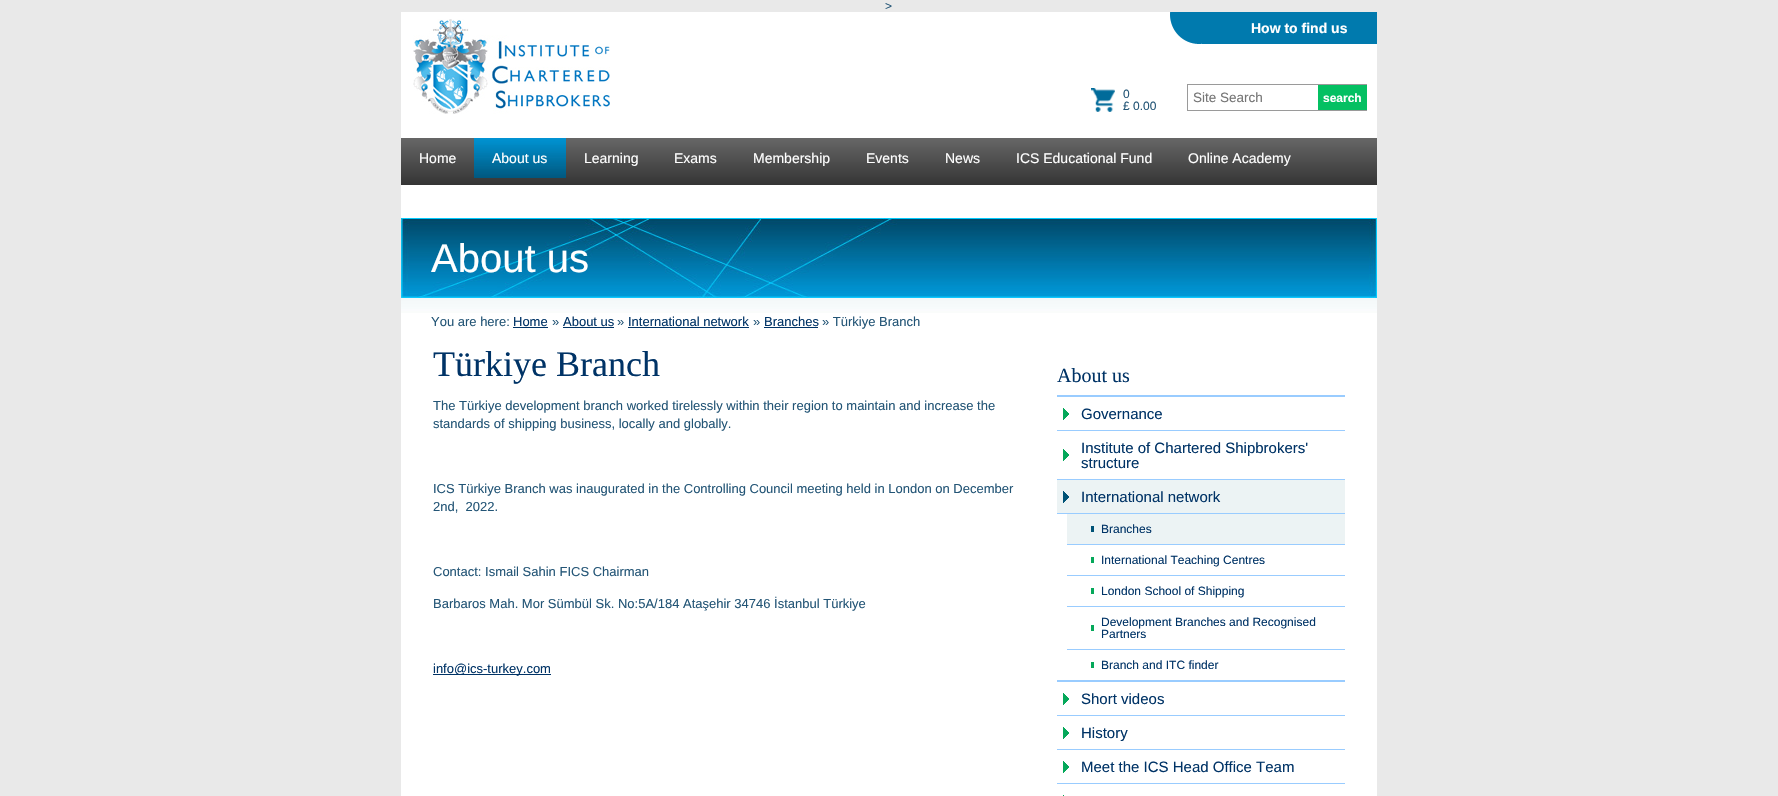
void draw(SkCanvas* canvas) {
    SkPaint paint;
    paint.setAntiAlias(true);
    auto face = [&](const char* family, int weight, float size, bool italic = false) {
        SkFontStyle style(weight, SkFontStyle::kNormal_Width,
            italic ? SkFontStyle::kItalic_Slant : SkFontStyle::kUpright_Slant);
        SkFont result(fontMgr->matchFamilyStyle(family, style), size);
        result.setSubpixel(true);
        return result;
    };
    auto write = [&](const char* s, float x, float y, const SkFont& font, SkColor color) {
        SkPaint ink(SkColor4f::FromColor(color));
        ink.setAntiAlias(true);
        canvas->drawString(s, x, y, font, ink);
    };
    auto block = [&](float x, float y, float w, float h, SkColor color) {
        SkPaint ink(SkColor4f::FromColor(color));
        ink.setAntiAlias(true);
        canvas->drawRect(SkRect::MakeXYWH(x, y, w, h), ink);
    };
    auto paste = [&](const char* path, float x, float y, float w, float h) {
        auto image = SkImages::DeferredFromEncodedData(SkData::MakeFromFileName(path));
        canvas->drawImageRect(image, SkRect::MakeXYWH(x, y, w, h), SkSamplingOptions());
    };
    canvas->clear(SkColorSetRGB(233, 233, 233));
    auto kFont1 = face("Liberation Sans", 400, 12);
    write(">", 885, 10, kFont1, SkColorSetRGB(35, 85, 118));
    block(401, 12, 976, 784, SK_ColorWHITE);
    paste("pic1.png", 413, 19, 197, 95);
    block(1202, 12, 175, 32, SkColorSetRGB(0, 122, 174));
    paste("pic2.png", 1170, 12, 32, 32);
    auto kFont2 = face("Liberation Sans", 700, 14);
    write("How to find us", 1251, 33, kFont2, SK_ColorWHITE);
    paste("pic3.png", 1091, 88, 24, 24);
    write("0", 1123, 98, kFont1, SkColorSetRGB(35, 85, 118));
    write("£ 0.00", 1123, 110, kFont1, SkColorSetRGB(35, 85, 118));
    block(1187, 84, 180, 1, SkColorSetRGB(154, 154, 154));
    block(1187, 110, 180, 1, SkColorSetRGB(154, 154, 154));
    block(1187, 84, 1, 27, SkColorSetRGB(154, 154, 154));
    auto kFont3 = face("Liberation Sans", 400, 13.5f);
    write("Site Search", 1193, 102, kFont3, SkColorSetRGB(117, 117, 117));
    block(1318, 85, 49, 25, SkColorSetRGB(4, 192, 98));
    auto kFont4 = face("Liberation Sans", 700, 12);
    write("search", 1323, 102, kFont4, SK_ColorWHITE);
    paste("pic4.png", 401, 138, 976, 47);
    auto kFont5 = face("Liberation Sans", 400, 14);
    write("Home", 419, 163, kFont5, SK_ColorWHITE);
    paste("pic5.png", 474, 138, 92, 40);
    write("About us", 492, 163, kFont5, SK_ColorWHITE);
    write("Learning", 584, 163, kFont5, SK_ColorWHITE);
    write("Exams", 674, 163, kFont5, SK_ColorWHITE);
    write("Membership", 753, 163, kFont5, SK_ColorWHITE);
    write("Events", 866, 163, kFont5, SK_ColorWHITE);
    write("News", 945, 163, kFont5, SK_ColorWHITE);
    write("ICS Educational Fund", 1016, 163, kFont5, SK_ColorWHITE);
    write("Online Academy", 1188, 163, kFont5, SK_ColorWHITE);
    paste("pic6.png", 401, 298, 976, 15);
    paste("pic7.png", 401, 218, 976, 80);
    auto kFont6 = face("Liberation Sans", 400, 40);
    write("About us", 431, 272, kFont6, SK_ColorWHITE);
    auto kFont7 = face("Liberation Sans", 400, 13);
    write("You are here:", 431, 326, kFont7, SkColorSetRGB(35, 85, 118));
    write("Home", 513, 326, kFont7, SkColorSetRGB(0, 51, 102));
    block(513, 327, 35, 1, SkColorSetRGB(0, 51, 102));
    write("»", 552, 326, kFont7, SkColorSetRGB(35, 85, 118));
    write("About us", 563, 326, kFont7, SkColorSetRGB(0, 51, 102));
    block(563, 327, 51, 1, SkColorSetRGB(0, 51, 102));
    write("»", 617, 326, kFont7, SkColorSetRGB(35, 85, 118));
    write("International network", 628, 326, kFont7, SkColorSetRGB(0, 51, 102));
    block(628, 327, 121, 1, SkColorSetRGB(0, 51, 102));
    write("»", 753, 326, kFont7, SkColorSetRGB(35, 85, 118));
    write("Branches", 764, 326, kFont7, SkColorSetRGB(0, 51, 102));
    block(764, 327, 54, 1, SkColorSetRGB(0, 51, 102));
    write("» Türkiye Branch", 822, 326, kFont7, SkColorSetRGB(35, 85, 118));
    auto kFont8 = face("Liberation Serif", 400, 36);
    write("Türkiye Branch", 433, 376, kFont8, SkColorSetRGB(0, 51, 102));
    write("The Türkiye development branch worked tirelessly within their region to maintain and increase the", 433, 410, kFont7, SkColorSetRGB(35, 85, 118));
    write("standards of shipping business, locally and globally.", 433, 428, kFont7, SkColorSetRGB(35, 85, 118));
    write("ICS Türkiye Branch was inaugurated in the Controlling Council meeting held in London on December", 433, 493, kFont7, SkColorSetRGB(35, 85, 118));
    write("2nd,  2022.", 433, 511, kFont7, SkColorSetRGB(35, 85, 118));
    write("Contact: Ismail Sahin FICS Chairman", 433, 576, kFont7, SkColorSetRGB(35, 85, 118));
    write("Barbaros Mah. Mor Sümbül Sk. No:5A/184 Ataşehir 34746 İstanbul Türkiye", 433, 608, kFont7, SkColorSetRGB(35, 85, 118));
    block(433, 674, 118, 1, SkColorSetRGB(0, 51, 102));
    write("info@ics-turkey.com", 433, 673, kFont7, SkColorSetRGB(0, 51, 102));
    auto kFont9 = face("Liberation Serif", 400, 20);
    write("About us", 1057, 382, kFont9, SkColorSetRGB(0, 51, 102));
    block(1057, 395, 288, 2, SkColorSetRGB(153, 204, 255));
    paste("pic8.png", 1063, 408, 6, 12);
    block(1057, 430, 288, 1, SkColorSetRGB(153, 204, 255));
    auto kFont10 = face("Liberation Sans", 400, 15);
    write("Governance", 1081, 419, kFont10, SkColorSetRGB(0, 51, 102));
    paste("pic8.png", 1063, 449, 6, 12);
    block(1057, 479, 288, 1, SkColorSetRGB(153, 204, 255));
    write("Institute of Chartered Shipbrokers'", 1081, 453, kFont10, SkColorSetRGB(0, 51, 102));
    write("structure", 1081, 468, kFont10, SkColorSetRGB(0, 51, 102));
    block(1057, 480, 288, 33, SkColorSetRGB(236, 243, 244));
    paste("pic9.png", 1063, 491, 6, 12);
    block(1057, 513, 288, 1, SkColorSetRGB(153, 204, 255));
    write("International network", 1081, 502, kFont10, SkColorSetRGB(0, 51, 102));
    block(1057, 680, 288, 2, SkColorSetRGB(153, 204, 255));
    block(1067, 514, 278, 30, SkColorSetRGB(236, 243, 244));
    block(1091, 526, 3, 6, SkColorSetRGB(0, 82, 118));
    block(1067, 544, 278, 1, SkColorSetRGB(153, 204, 255));
    write("Branches", 1101, 533, kFont1, SkColorSetRGB(0, 51, 102));
    block(1091, 557, 3, 6, SkColorSetRGB(5, 168, 90));
    block(1067, 575, 278, 1, SkColorSetRGB(153, 204, 255));
    write("International Teaching Centres", 1101, 564, kFont1, SkColorSetRGB(0, 51, 102));
    block(1091, 588, 3, 6, SkColorSetRGB(5, 168, 90));
    block(1067, 606, 278, 1, SkColorSetRGB(153, 204, 255));
    write("London School of Shipping", 1101, 595, kFont1, SkColorSetRGB(0, 51, 102));
    block(1091, 625, 3, 6, SkColorSetRGB(5, 168, 90));
    block(1067, 649, 278, 1, SkColorSetRGB(153, 204, 255));
    write("Development Branches and Recognised", 1101, 626, kFont1, SkColorSetRGB(0, 51, 102));
    write("Partners", 1101, 638, kFont1, SkColorSetRGB(0, 51, 102));
    block(1091, 662, 3, 6, SkColorSetRGB(5, 168, 90));
    write("Branch and ITC finder", 1101, 669, kFont1, SkColorSetRGB(0, 51, 102));
    paste("pic8.png", 1063, 693, 6, 12);
    block(1057, 715, 288, 1, SkColorSetRGB(153, 204, 255));
    write("Short videos", 1081, 704, kFont10, SkColorSetRGB(0, 51, 102));
    paste("pic8.png", 1063, 727, 6, 12);
    block(1057, 749, 288, 1, SkColorSetRGB(153, 204, 255));
    write("History", 1081, 738, kFont10, SkColorSetRGB(0, 51, 102));
    paste("pic8.png", 1063, 761, 6, 12);
    block(1057, 783, 288, 1, SkColorSetRGB(153, 204, 255));
    write("Meet the ICS Head Office Team", 1081, 772, kFont10, SkColorSetRGB(0, 51, 102));
    block(1063, 795, 1, 1, SkColorSetRGB(5, 168, 90));
}
